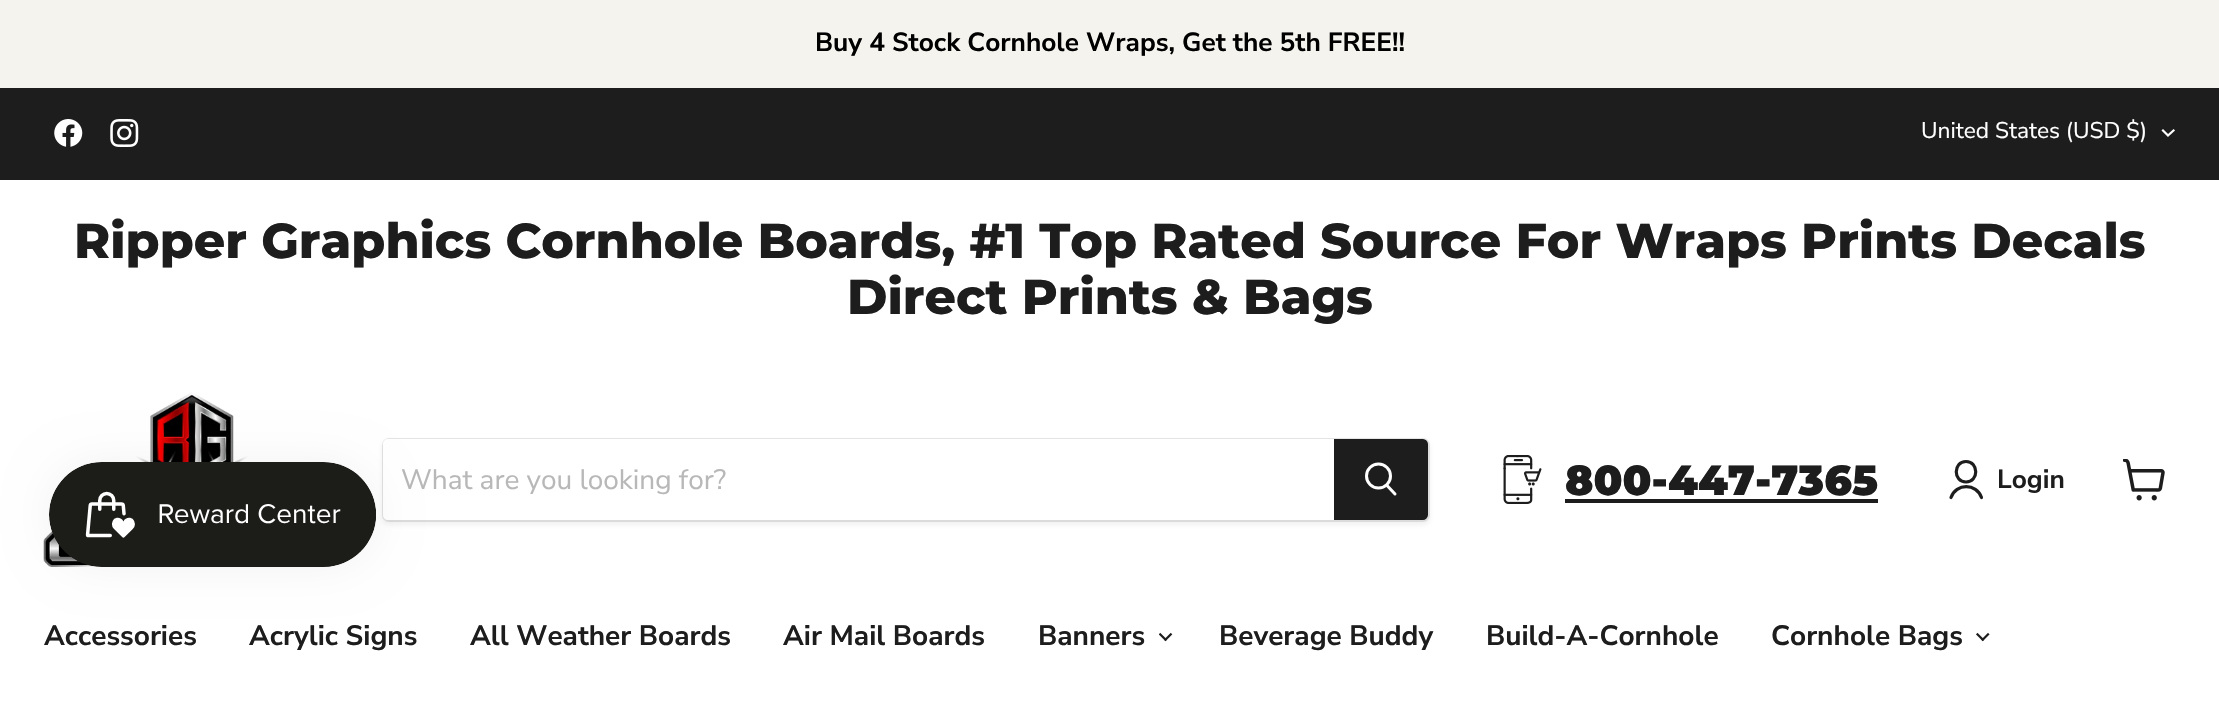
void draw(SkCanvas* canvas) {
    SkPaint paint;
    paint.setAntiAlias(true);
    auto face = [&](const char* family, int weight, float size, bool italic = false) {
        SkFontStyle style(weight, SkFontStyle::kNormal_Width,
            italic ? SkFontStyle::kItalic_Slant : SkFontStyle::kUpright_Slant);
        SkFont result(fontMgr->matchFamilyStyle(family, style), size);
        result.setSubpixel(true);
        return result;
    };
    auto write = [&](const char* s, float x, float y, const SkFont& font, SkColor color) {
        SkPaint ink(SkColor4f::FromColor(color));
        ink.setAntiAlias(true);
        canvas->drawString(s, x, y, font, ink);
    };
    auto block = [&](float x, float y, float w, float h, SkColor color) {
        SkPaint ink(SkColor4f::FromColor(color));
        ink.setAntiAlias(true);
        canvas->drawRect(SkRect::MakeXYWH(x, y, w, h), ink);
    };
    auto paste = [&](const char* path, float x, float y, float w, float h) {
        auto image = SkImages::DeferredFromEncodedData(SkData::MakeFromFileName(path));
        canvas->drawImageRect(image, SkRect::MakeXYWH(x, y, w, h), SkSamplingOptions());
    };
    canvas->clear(SK_ColorWHITE);
    block(0, 0, 2219, 88, SkColorSetRGB(245, 243, 237));
    auto kFont1 = face("Nunito Sans", 700, 26.25f);
    write("Buy 4 Stock Cornhole Wraps, Get the 5th FREE!!", 815, 51, kFont1, SK_ColorBLACK);
    block(0, 88, 2219, 92, SkColorSetRGB(29, 29, 29));
    paste("pic1.png", 54, 119, 29, 28);
    paste("pic2.png", 110, 119, 29, 28);
    auto kFont2 = face("Nunito Sans", 400, 22.75f);
    write("United States (USD $)", 1921, 138, kFont2, SK_ColorWHITE);
    paint.setStyle(SkPaint::kStroke_Style);
    paint.setStrokeWidth(2.2f);
    paint.setStrokeCap(SkPaint::kSquare_Cap);
    paint.setColor(SK_ColorWHITE);
    canvas->drawPath(SkPathBuilder().moveTo(2168, 135.5f).lineTo(2173.5f, 130.5f).moveTo(2168, 135.5f).lineTo(2163, 130.5f).detach(), paint);
    auto kFont3 = face("Montserrat", 800, 49);
    write("Ripper Graphics Cornhole Boards, #1 Top Rated Source For Wraps Prints Decals", 74, 258, kFont3, SkColorSetRGB(29, 29, 29));
    write("Direct Prints & Bags", 847, 314, kFont3, SkColorSetRGB(29, 29, 29));
    paste("pic3.png", 43, 392, 289, 175);
    paint.setStyle(SkPaint::kFill_Style);
    paint.setColor(SkColorSetARGB(28, 128, 128, 128));
    paint.setMaskFilter(SkMaskFilter::MakeBlur(kNormal_SkBlurStyle, 2.5f));
    canvas->drawRoundRect(SkRect::MakeXYWH(382, 441, 1048, 84), 7, 7, paint);
    paint.setMaskFilter(nullptr);
    paint.setStyle(SkPaint::kStroke_Style);
    paint.setStrokeWidth(2);
    paint.setStrokeCap(SkPaint::kButt_Cap);
    paint.setColor(SkColorSetARGB(51, 128, 128, 128));
    canvas->drawRoundRect(SkRect::MakeXYWH(383, 439, 1046, 82), 6, 6, paint);
    paint.setStyle(SkPaint::kFill_Style);
    paint.setColor(SK_ColorWHITE);
    canvas->drawPath(SkPathBuilder().moveTo(388, 439).lineTo(1334, 439).lineTo(1334, 520).lineTo(388, 520).cubicTo(385, 520, 383, 518, 383, 515).lineTo(383, 444).cubicTo(383, 441, 385, 439, 388, 439).close().detach(), paint);
    auto kFont4 = face("Nunito Sans", 400, 28);
    write("What are you looking for?", 401, 489, kFont4, SkColorSetRGB(184, 184, 184));
    paint.setColor(SkColorSetRGB(29, 29, 29));
    canvas->drawPath(SkPathBuilder().moveTo(1335, 440).lineTo(1423, 440).cubicTo(1425, 440, 1427, 442, 1427, 444).lineTo(1427, 515).cubicTo(1427, 517, 1425, 519, 1423, 519).lineTo(1335, 519).close().detach(), paint);
    paint.setStyle(SkPaint::kStroke_Style);
    canvas->drawPath(SkPathBuilder().moveTo(1335, 440).lineTo(1423, 440).cubicTo(1425, 440, 1427, 442, 1427, 444).lineTo(1427, 515).cubicTo(1427, 517, 1425, 519, 1423, 519).lineTo(1335, 519).close().detach(), paint);
    paint.setStrokeWidth(3);
    paint.setStrokeCap(SkPaint::kRound_Cap);
    paint.setColor(SK_ColorWHITE);
    canvas->drawPath(SkPathBuilder().moveTo(1395, 494).lineTo(1387, 485.5f).detach(), paint);
    paint.setStrokeCap(SkPaint::kButt_Cap);
    canvas->drawCircle(1378.5f, 476, 12, paint);
    paste("pic4.png", 1503, 455, 39, 49);
    auto kFont5 = face("Montserrat", 900, 42);
    write("800-447-7365", 1565, 495, kFont5, SkColorSetRGB(29, 29, 29));
    block(1565, 499, 313, 4, SkColorSetRGB(29, 29, 29));
    paint.setStrokeWidth(3.2f);
    paint.setStrokeCap(SkPaint::kRound_Cap);
    paint.setStrokeJoin(SkPaint::kRound_Join);
    paint.setColor(SkColorSetRGB(29, 29, 29));
    canvas->drawPath(SkPathBuilder().moveTo(1966, 482).cubicTo(1979, 482, 1979, 461.5f, 1966, 461.5f).cubicTo(1953, 461.5f, 1953, 482, 1966, 482).close().moveTo(1981.5f, 497.5f).cubicTo(1976.5f, 483, 1956, 483, 1951, 497.5f).detach(), paint);
    write("Login", 1997, 488, kFont1, SkColorSetRGB(29, 29, 29));
    paste("pic5.png", 2123, 459, 42, 42);
    auto kFont6 = face("Nunito Sans", 700, 28);
    write("Accessories", 44, 645, kFont6, SkColorSetRGB(29, 29, 29));
    write("Acrylic Signs", 249, 645, kFont6, SkColorSetRGB(29, 29, 29));
    write("All Weather Boards", 470, 645, kFont6, SkColorSetRGB(29, 29, 29));
    write("Air Mail Boards", 783, 645, kFont6, SkColorSetRGB(29, 29, 29));
    write("Banners", 1038, 645, kFont6, SkColorSetRGB(29, 29, 29));
    paste("pic6.png", 1159, 632, 14, 10);
    write("Beverage Buddy", 1219, 645, kFont6, SkColorSetRGB(29, 29, 29));
    write("Build-A-Cornhole", 1486, 645, kFont6, SkColorSetRGB(29, 29, 29));
    write("Cornhole Bags", 1771, 645, kFont6, SkColorSetRGB(29, 29, 29));
    paste("pic7.png", 1976, 632, 14, 10);
    paint.setStyle(SkPaint::kFill_Style);
    paint.setColor(SkColorSetARGB(13, 0, 0, 0));
    paint.setMaskFilter(SkMaskFilter::MakeBlur(kNormal_SkBlurStyle, 22));
    canvas->drawRoundRect(SkRect::MakeXYWH(49, 462, 327, 105), 52.5f, 52.5f, paint);
    paint.setMaskFilter(nullptr);
    paste("pic8.png", 49, 462, 327, 105);
}
